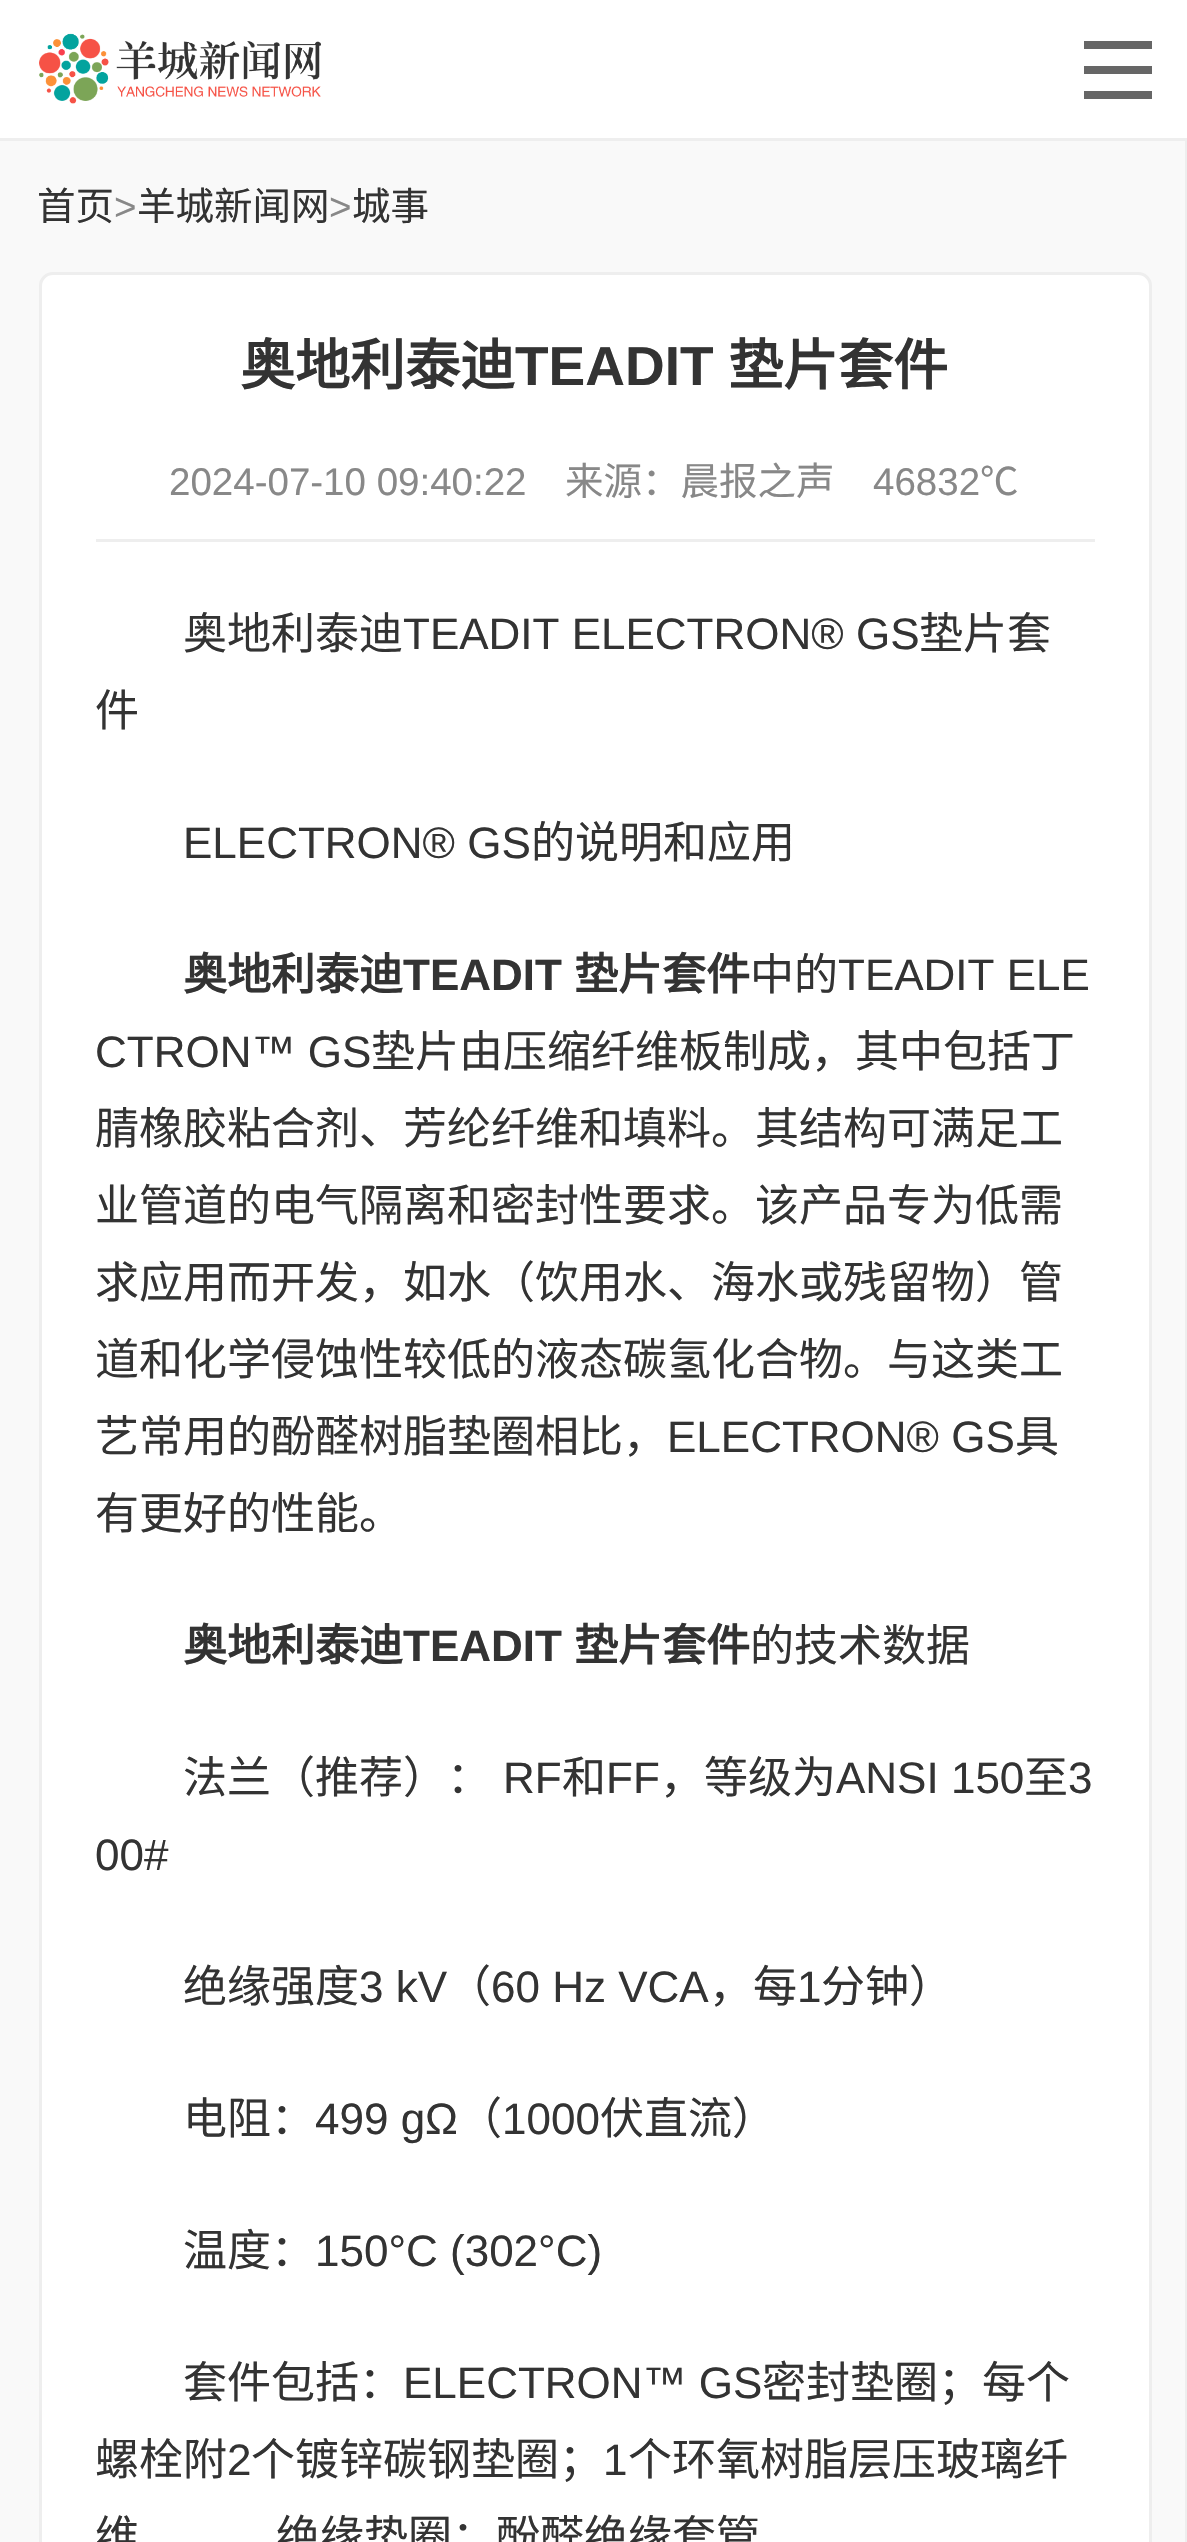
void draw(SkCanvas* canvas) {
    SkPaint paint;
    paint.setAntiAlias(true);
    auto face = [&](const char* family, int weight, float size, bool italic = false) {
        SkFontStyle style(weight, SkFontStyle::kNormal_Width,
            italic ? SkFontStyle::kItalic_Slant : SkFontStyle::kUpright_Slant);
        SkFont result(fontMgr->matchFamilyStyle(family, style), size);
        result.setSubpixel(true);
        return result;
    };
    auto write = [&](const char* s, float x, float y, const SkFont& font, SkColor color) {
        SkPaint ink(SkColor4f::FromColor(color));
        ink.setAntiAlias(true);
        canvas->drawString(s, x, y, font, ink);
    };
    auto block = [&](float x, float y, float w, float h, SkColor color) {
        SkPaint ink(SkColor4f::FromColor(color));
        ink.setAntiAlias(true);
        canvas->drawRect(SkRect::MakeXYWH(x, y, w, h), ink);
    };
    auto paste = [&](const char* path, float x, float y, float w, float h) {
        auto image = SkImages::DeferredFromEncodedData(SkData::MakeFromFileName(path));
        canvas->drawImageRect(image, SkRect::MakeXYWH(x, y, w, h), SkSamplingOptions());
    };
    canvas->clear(SkColorSetRGB(249, 249, 249));
    block(0, 0, 1187, 138, SK_ColorWHITE);
    block(0, 138, 1187, 3, SkColorSetRGB(238, 238, 238));
    paste("pic1.png", 39, 33, 282, 71);
    block(1084, 66, 68, 8, SkColorSetRGB(102, 102, 102));
    block(1084, 41, 68, 8, SkColorSetRGB(102, 102, 102));
    block(1084, 91, 68, 8, SkColorSetRGB(102, 102, 102));
    auto kFont1 = face("Noto Sans CJK SC", 400, 38.5f);
    write("首页", 37, 220, kFont1, SkColorSetRGB(51, 51, 51));
    auto kFont2 = face("Liberation Sans", 400, 38.5f);
    write(">", 114, 220, kFont2, SkColorSetRGB(136, 136, 136));
    write("羊城新闻网", 137, 220, kFont1, SkColorSetRGB(51, 51, 51));
    write(">", 329, 220, kFont2, SkColorSetRGB(136, 136, 136));
    write("城事", 352, 220, kFont1, SkColorSetRGB(51, 51, 51));
    paint.setColor(SK_ColorWHITE);
    canvas->drawRoundRect(SkRect::MakeXYWH(40.5f, 273.5f, 1110, 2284), 12.5f, 12.5f, paint);
    paint.setStyle(SkPaint::kStroke_Style);
    paint.setStrokeWidth(3);
    paint.setColor(SkColorSetRGB(238, 238, 238));
    canvas->drawRoundRect(SkRect::MakeXYWH(40.5f, 273.5f, 1110, 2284), 12.5f, 12.5f, paint);
    auto kFont3 = face("Noto Sans CJK SC", 700, 55);
    write("奥地利泰迪", 240, 385, kFont3, SkColorSetRGB(51, 51, 51));
    auto kFont4 = face("Liberation Sans", 700, 55);
    write("TEADIT", 515, 385, kFont4, SkColorSetRGB(51, 51, 51));
    write("垫片套件", 728, 385, kFont3, SkColorSetRGB(51, 51, 51));
    block(96, 539, 999, 3, SkColorSetRGB(238, 238, 238));
    write("2024-07-10 09:40:22", 169, 495, kFont2, SkColorSetRGB(136, 136, 136));
    write("来源：晨报之声", 565, 495, kFont1, SkColorSetRGB(136, 136, 136));
    write("46832", 873, 495, kFont2, SkColorSetRGB(136, 136, 136));
    write("℃", 980, 495, kFont1, SkColorSetRGB(136, 136, 136));
    auto kFont5 = face("Noto Sans CJK SC", 400, 44);
    write("奥地利泰迪", 183, 649, kFont5, SkColorSetRGB(51, 51, 51));
    auto kFont6 = face("Liberation Sans", 400, 44);
    write("TEADIT ELECTRON® GS", 403, 649, kFont6, SkColorSetRGB(51, 51, 51));
    write("垫片套", 919, 649, kFont5, SkColorSetRGB(51, 51, 51));
    write("件", 95, 726, kFont5, SkColorSetRGB(51, 51, 51));
    write("ELECTRON® GS", 183, 858, kFont6, SkColorSetRGB(51, 51, 51));
    write("的说明和应用", 531, 858, kFont5, SkColorSetRGB(51, 51, 51));
    auto kFont7 = face("Noto Sans CJK SC", 700, 44);
    write("奥地利泰迪", 183, 990, kFont7, SkColorSetRGB(51, 51, 51));
    auto kFont8 = face("Liberation Sans", 700, 44);
    write("TEADIT", 403, 990, kFont8, SkColorSetRGB(51, 51, 51));
    write("垫片套件", 574, 990, kFont7, SkColorSetRGB(51, 51, 51));
    write("中的", 750, 990, kFont5, SkColorSetRGB(51, 51, 51));
    write("TEADIT ELE", 838, 990, kFont6, SkColorSetRGB(51, 51, 51));
    write("CTRON™ GS", 95, 1067, kFont6, SkColorSetRGB(51, 51, 51));
    write("垫片由压缩纤维板制成，其中包括丁", 371, 1067, kFont5, SkColorSetRGB(51, 51, 51));
    write("腈橡胶粘合剂、芳纶纤维和填料。其结构可满足工", 95, 1144, kFont5, SkColorSetRGB(51, 51, 51));
    write("业管道的电气隔离和密封性要求。该产品专为低需", 95, 1221, kFont5, SkColorSetRGB(51, 51, 51));
    write("求应用而开发，如水（饮用水、海水或残留物）管", 95, 1298, kFont5, SkColorSetRGB(51, 51, 51));
    write("道和化学侵蚀性较低的液态碳氢化合物。与这类工", 95, 1375, kFont5, SkColorSetRGB(51, 51, 51));
    write("艺常用的酚醛树脂垫圈相比，", 95, 1452, kFont5, SkColorSetRGB(51, 51, 51));
    write("ELECTRON® GS", 667, 1452, kFont6, SkColorSetRGB(51, 51, 51));
    write("具", 1015, 1452, kFont5, SkColorSetRGB(51, 51, 51));
    write("有更好的性能。", 95, 1529, kFont5, SkColorSetRGB(51, 51, 51));
    write("奥地利泰迪", 183, 1661, kFont7, SkColorSetRGB(51, 51, 51));
    write("TEADIT", 403, 1661, kFont8, SkColorSetRGB(51, 51, 51));
    write("垫片套件", 574, 1661, kFont7, SkColorSetRGB(51, 51, 51));
    write("的技术数据", 750, 1661, kFont5, SkColorSetRGB(51, 51, 51));
    write("法兰（推荐）：", 183, 1793, kFont5, SkColorSetRGB(51, 51, 51));
    write("RF", 503, 1793, kFont6, SkColorSetRGB(51, 51, 51));
    write("和", 562, 1793, kFont5, SkColorSetRGB(51, 51, 51));
    write("FF", 606, 1793, kFont6, SkColorSetRGB(51, 51, 51));
    write("，等级为", 660, 1793, kFont5, SkColorSetRGB(51, 51, 51));
    write("ANSI 150", 836, 1793, kFont6, SkColorSetRGB(51, 51, 51));
    write("至", 1024, 1793, kFont5, SkColorSetRGB(51, 51, 51));
    write("3", 1068, 1793, kFont6, SkColorSetRGB(51, 51, 51));
    write("00#", 95, 1870, kFont6, SkColorSetRGB(51, 51, 51));
    write("绝缘强度", 183, 2002, kFont5, SkColorSetRGB(51, 51, 51));
    write("3 kV", 359, 2002, kFont6, SkColorSetRGB(51, 51, 51));
    write("（", 447, 2002, kFont5, SkColorSetRGB(51, 51, 51));
    write("60 Hz VCA", 491, 2002, kFont6, SkColorSetRGB(51, 51, 51));
    write("，每", 709, 2002, kFont5, SkColorSetRGB(51, 51, 51));
    write("1", 797, 2002, kFont6, SkColorSetRGB(51, 51, 51));
    write("分钟）", 821, 2002, kFont5, SkColorSetRGB(51, 51, 51));
    write("电阻：", 183, 2134, kFont5, SkColorSetRGB(51, 51, 51));
    write("499 gΩ", 315, 2134, kFont6, SkColorSetRGB(51, 51, 51));
    write("（", 458, 2134, kFont5, SkColorSetRGB(51, 51, 51));
    write("1000", 502, 2134, kFont6, SkColorSetRGB(51, 51, 51));
    write("伏直流）", 600, 2134, kFont5, SkColorSetRGB(51, 51, 51));
    write("温度：", 183, 2266, kFont5, SkColorSetRGB(51, 51, 51));
    write("150°C (302°C)", 315, 2266, kFont6, SkColorSetRGB(51, 51, 51));
    write("套件包括：", 183, 2398, kFont5, SkColorSetRGB(51, 51, 51));
    write("ELECTRON™ GS", 403, 2398, kFont6, SkColorSetRGB(51, 51, 51));
    write("密封垫圈；每个", 762, 2398, kFont5, SkColorSetRGB(51, 51, 51));
    write("螺栓附", 95, 2475, kFont5, SkColorSetRGB(51, 51, 51));
    write("2", 227, 2475, kFont6, SkColorSetRGB(51, 51, 51));
    write("个镀锌碳钢垫圈；", 251, 2475, kFont5, SkColorSetRGB(51, 51, 51));
    write("1", 603, 2475, kFont6, SkColorSetRGB(51, 51, 51));
    write("个环氧树脂层压玻璃纤", 628, 2475, kFont5, SkColorSetRGB(51, 51, 51));
    write("维", 95, 2552, kFont5, SkColorSetRGB(51, 51, 51));
    write("绝缘垫圈；酚醛绝缘套管", 276, 2552, kFont5, SkColorSetRGB(51, 51, 51));
    block(1185, 138, 2, 2404, SkColorSetRGB(238, 238, 238));
}
